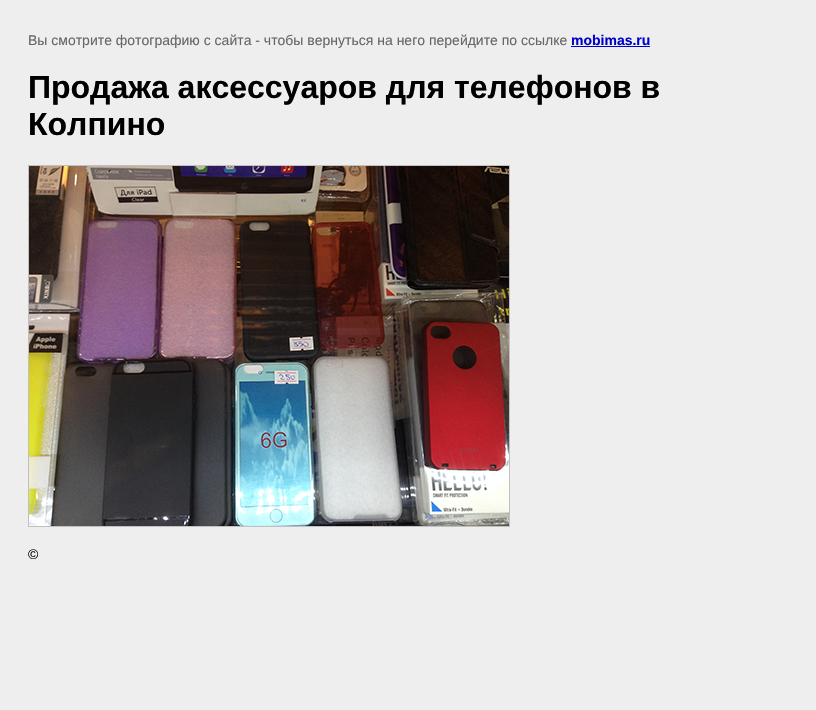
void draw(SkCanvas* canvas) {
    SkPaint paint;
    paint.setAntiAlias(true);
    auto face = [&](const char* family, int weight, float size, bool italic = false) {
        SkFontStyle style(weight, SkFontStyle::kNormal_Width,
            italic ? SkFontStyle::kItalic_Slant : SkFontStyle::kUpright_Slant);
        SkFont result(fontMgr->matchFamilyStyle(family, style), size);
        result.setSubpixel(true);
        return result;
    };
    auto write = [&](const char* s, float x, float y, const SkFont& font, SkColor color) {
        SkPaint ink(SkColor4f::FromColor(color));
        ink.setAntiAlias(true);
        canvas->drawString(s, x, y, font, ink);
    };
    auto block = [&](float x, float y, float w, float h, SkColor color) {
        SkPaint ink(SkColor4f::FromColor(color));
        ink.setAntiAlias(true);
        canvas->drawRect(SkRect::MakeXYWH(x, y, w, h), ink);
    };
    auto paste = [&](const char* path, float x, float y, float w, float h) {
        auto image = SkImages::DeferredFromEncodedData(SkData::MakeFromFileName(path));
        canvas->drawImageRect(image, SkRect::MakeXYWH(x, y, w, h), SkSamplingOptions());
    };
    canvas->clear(SkColorSetRGB(238, 238, 238));
    auto kFont1 = face("Liberation Sans", 400, 14);
    write("Вы смотрите фотографию с сайта - чтобы вернуться на него перейдите по ссылке", 28, 45, kFont1, SkColorSetRGB(102, 102, 102));
    auto kFont2 = face("Liberation Sans", 700, 14);
    write("mobimas.ru", 571, 45, kFont2, SkColorSetRGB(0, 0, 204));
    block(571, 46, 79, 1, SkColorSetRGB(0, 0, 204));
    auto kFont3 = face("Liberation Sans", 700, 32);
    write("Продажа аксессуаров для телефонов в", 28, 98, kFont3, SK_ColorBLACK);
    write("Колпино", 28, 135, kFont3, SK_ColorBLACK);
    paint.setStyle(SkPaint::kStroke_Style);
    paint.setStrokeWidth(1);
    paint.setColor(SkColorSetRGB(192, 192, 192));
    canvas->drawRect(SkRect::MakeXYWH(28.5f, 165.5f, 481, 361), paint);
    paste("pic1.png", 29, 166, 480, 360);
    write("©", 28, 559, kFont1, SK_ColorBLACK);
}
